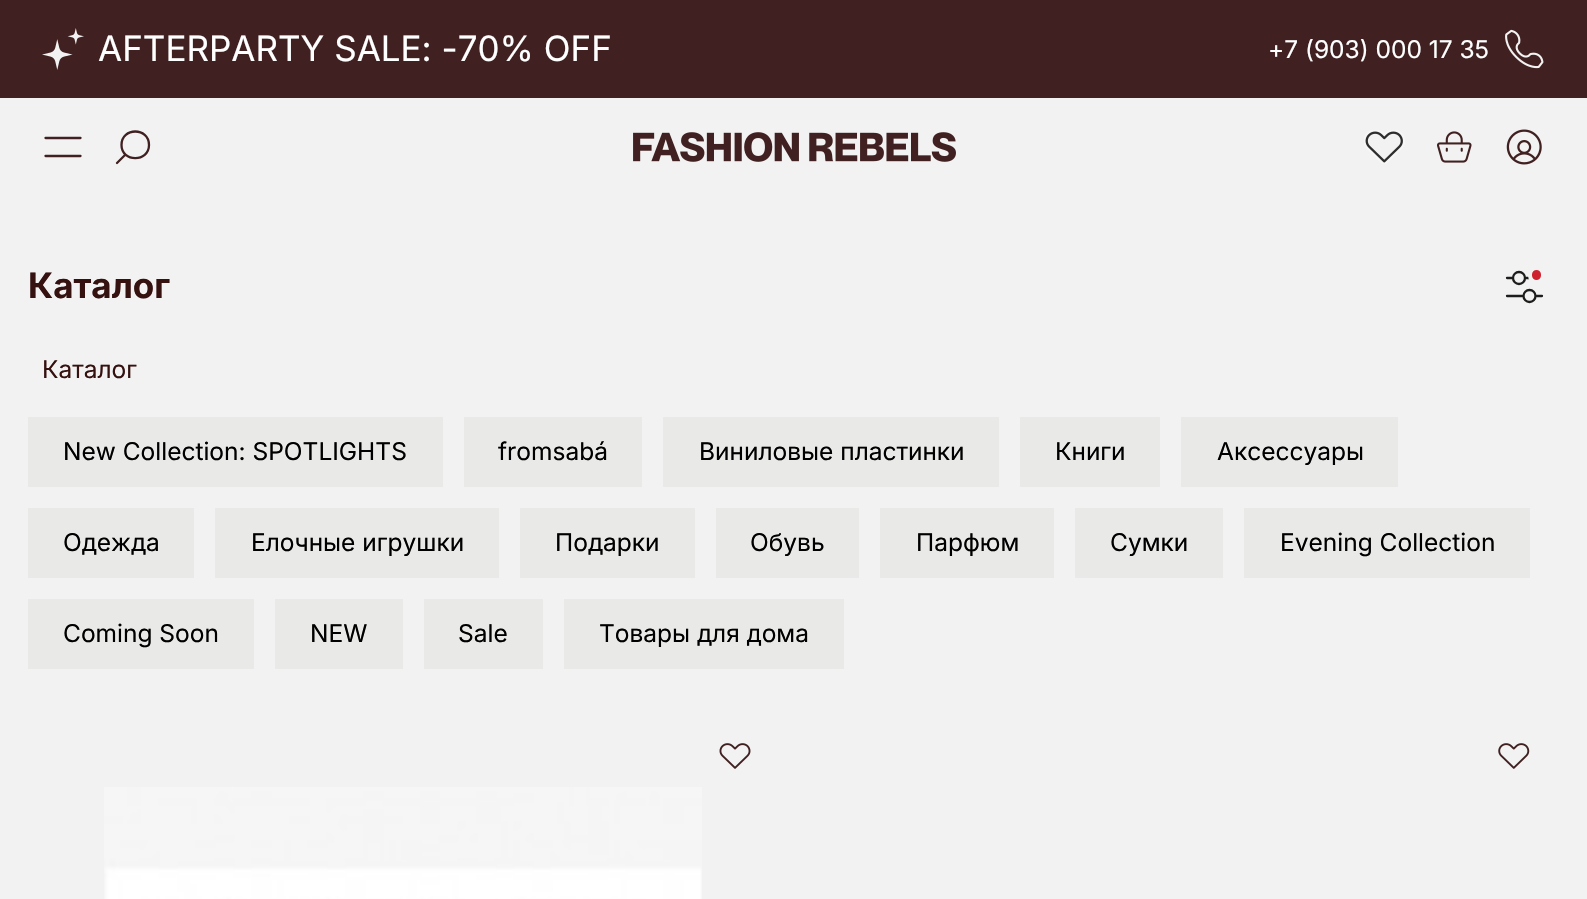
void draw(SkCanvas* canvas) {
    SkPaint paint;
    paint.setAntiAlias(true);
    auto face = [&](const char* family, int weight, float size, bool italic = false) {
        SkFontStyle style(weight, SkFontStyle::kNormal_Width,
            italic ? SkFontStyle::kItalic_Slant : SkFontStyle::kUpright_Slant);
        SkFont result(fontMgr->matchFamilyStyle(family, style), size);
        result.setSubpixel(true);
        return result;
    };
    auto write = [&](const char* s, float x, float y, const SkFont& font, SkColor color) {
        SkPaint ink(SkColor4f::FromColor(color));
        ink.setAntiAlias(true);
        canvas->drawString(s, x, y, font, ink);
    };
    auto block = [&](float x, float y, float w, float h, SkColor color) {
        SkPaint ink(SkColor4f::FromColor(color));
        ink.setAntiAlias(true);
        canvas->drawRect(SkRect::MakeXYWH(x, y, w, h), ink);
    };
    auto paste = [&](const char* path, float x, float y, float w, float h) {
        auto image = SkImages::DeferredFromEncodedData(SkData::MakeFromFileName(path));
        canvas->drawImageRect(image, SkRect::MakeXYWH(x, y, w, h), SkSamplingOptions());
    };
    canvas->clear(SkColorSetRGB(242, 242, 243));
    block(0, 0, 1587, 98, SkColorSetRGB(64, 32, 32));
    paste("pic1.png", 42, 28, 42, 42);
    auto kFont1 = face("Inter", 400, 35);
    write("AFTERPARTY SALE: -70% OFF", 98, 61, kFont1, SK_ColorWHITE);
    paste("pic2.png", 1505, 29, 39, 40);
    auto kFont2 = face("Inter", 400, 24.5f);
    write("+7 (903) 000 17 35", 1268, 58, kFont2, SK_ColorWHITE);
    paint.setStyle(SkPaint::kStroke_Style);
    paint.setStrokeWidth(2.3f);
    paint.setStrokeCap(SkPaint::kRound_Cap);
    paint.setStrokeJoin(SkPaint::kRound_Join);
    paint.setColor(SkColorSetRGB(64, 32, 32));
    canvas->drawPath(SkPathBuilder().moveTo(45.5f, 138).lineTo(80.5f, 138).moveTo(45.5f, 156).lineTo(80.5f, 156).detach(), paint);
    paint.setStrokeJoin(SkPaint::kMiter_Join);
    canvas->drawPath(SkPathBuilder().moveTo(117, 163).lineTo(125.5f, 154.5f).moveTo(149, 145).cubicTo(149, 162.5f, 121.5f, 162.5f, 121.5f, 145).cubicTo(121.5f, 127, 149, 127, 149, 145).close().detach(), paint);
    paste("pic3.png", 633, 132, 323, 30);
    paste("pic4.png", 1364, 130, 41, 34);
    paste("pic5.png", 1437, 131, 35, 32);
    paste("pic6.png", 1506, 129, 36, 36);
    auto kFont3 = face("Inter", 700, 35);
    write("Каталог", 28, 298, kFont3, SkColorSetRGB(53, 18, 16));
    paint.setStrokeJoin(SkPaint::kRound_Join);
    paint.setColor(SkColorSetRGB(29, 29, 27));
    canvas->drawPath(SkPathBuilder().moveTo(1542, 278).lineTo(1526, 278).moveTo(1542, 296).lineTo(1536.5f, 296).moveTo(1522.5f, 296).lineTo(1507, 296).moveTo(1512, 278).lineTo(1507, 278).detach(), paint);
    paint.setStrokeCap(SkPaint::kButt_Cap);
    paint.setStrokeJoin(SkPaint::kMiter_Join);
    canvas->drawCircle(1519, 278, 6, paint);
    canvas->drawCircle(1529.5f, 296, 6, paint);
    paint.setStyle(SkPaint::kFill_Style);
    paint.setColor(SkColorSetRGB(206, 32, 47));
    canvas->drawRoundRect(SkRect::MakeXYWH(1530, 268, 13, 14), 6.5f, 6.5f, paint);
    paint.setStyle(SkPaint::kStroke_Style);
    paint.setStrokeWidth(4);
    paint.setColor(SkColorSetRGB(242, 242, 242));
    canvas->drawRoundRect(SkRect::MakeXYWH(1530, 268, 13, 14), 6.5f, 6.5f, paint);
    write("Каталог", 42, 378, kFont2, SkColorSetRGB(53, 18, 16));
    block(28, 417, 415, 70, SkColorSetRGB(233, 233, 231));
    write("New Collection: SPOTLIGHTS", 63, 460, kFont2, SK_ColorBLACK);
    block(464, 417, 178, 70, SkColorSetRGB(233, 233, 231));
    write("fromsabá", 498, 460, kFont2, SK_ColorBLACK);
    block(663, 417, 336, 70, SkColorSetRGB(233, 233, 231));
    write("Виниловые пластинки", 699, 460, kFont2, SK_ColorBLACK);
    block(1020, 417, 140, 70, SkColorSetRGB(233, 233, 231));
    write("Книги", 1055, 460, kFont2, SK_ColorBLACK);
    block(1181, 417, 217, 70, SkColorSetRGB(233, 233, 231));
    write("Аксессуары", 1217, 460, kFont2, SK_ColorBLACK);
    block(28, 508, 166, 70, SkColorSetRGB(233, 233, 231));
    write("Одежда", 63, 551, kFont2, SK_ColorBLACK);
    block(215, 508, 284, 70, SkColorSetRGB(233, 233, 231));
    write("Елочные игрушки", 251, 551, kFont2, SK_ColorBLACK);
    block(520, 508, 175, 70, SkColorSetRGB(233, 233, 231));
    write("Подарки", 555, 551, kFont2, SK_ColorBLACK);
    block(716, 508, 143, 70, SkColorSetRGB(233, 233, 231));
    write("Обувь", 750, 551, kFont2, SK_ColorBLACK);
    block(880, 508, 174, 70, SkColorSetRGB(233, 233, 231));
    write("Парфюм", 916, 551, kFont2, SK_ColorBLACK);
    block(1075, 508, 148, 70, SkColorSetRGB(233, 233, 231));
    write("Сумки", 1110, 551, kFont2, SK_ColorBLACK);
    block(1244, 508, 286, 70, SkColorSetRGB(233, 233, 231));
    write("Evening Collection", 1280, 551, kFont2, SK_ColorBLACK);
    block(28, 599, 226, 70, SkColorSetRGB(233, 233, 231));
    write("Coming Soon", 63, 642, kFont2, SK_ColorBLACK);
    block(275, 599, 128, 70, SkColorSetRGB(233, 233, 231));
    write("NEW", 310, 642, kFont2, SK_ColorBLACK);
    block(424, 599, 119, 70, SkColorSetRGB(233, 233, 231));
    write("Sale", 458, 642, kFont2, SK_ColorBLACK);
    block(564, 599, 280, 70, SkColorSetRGB(233, 233, 231));
    write("Товары для дома", 599, 642, kFont2, SK_ColorBLACK);
    paste("pic7.png", 719, 743, 32, 26);
    paste("pic8.png", 104, 787, 598, 112);
    paste("pic9.png", 1498, 743, 32, 26);
}
